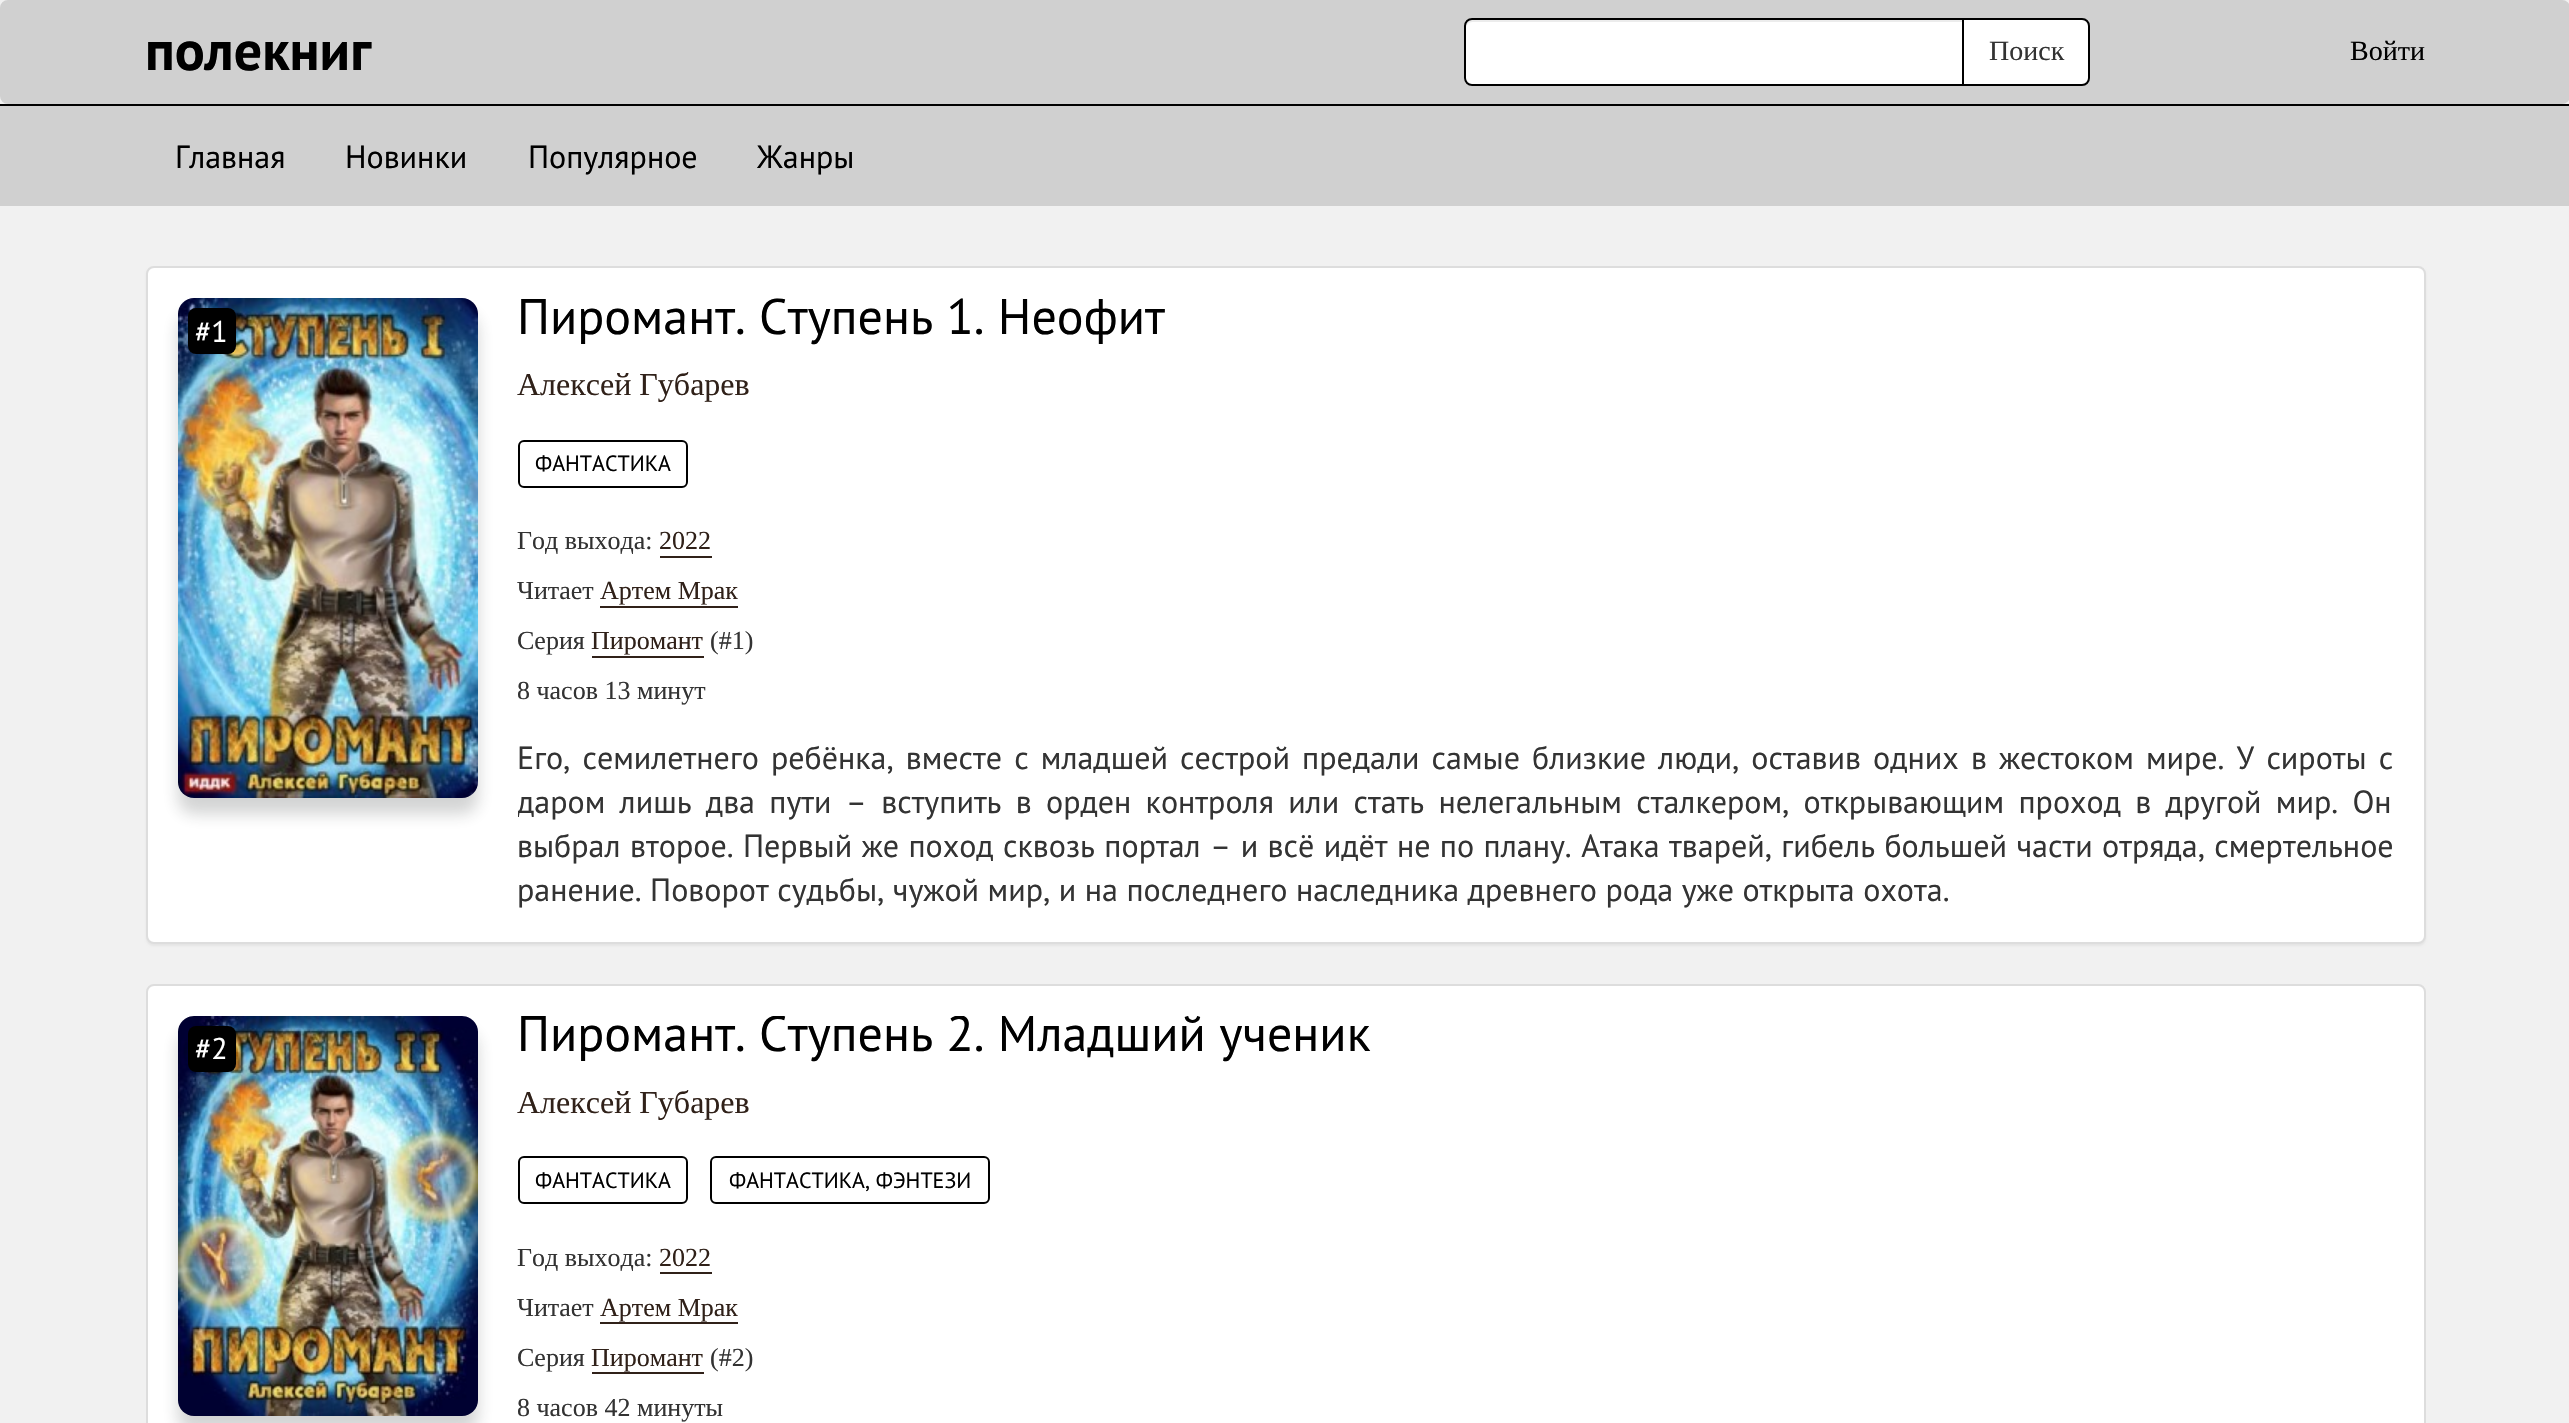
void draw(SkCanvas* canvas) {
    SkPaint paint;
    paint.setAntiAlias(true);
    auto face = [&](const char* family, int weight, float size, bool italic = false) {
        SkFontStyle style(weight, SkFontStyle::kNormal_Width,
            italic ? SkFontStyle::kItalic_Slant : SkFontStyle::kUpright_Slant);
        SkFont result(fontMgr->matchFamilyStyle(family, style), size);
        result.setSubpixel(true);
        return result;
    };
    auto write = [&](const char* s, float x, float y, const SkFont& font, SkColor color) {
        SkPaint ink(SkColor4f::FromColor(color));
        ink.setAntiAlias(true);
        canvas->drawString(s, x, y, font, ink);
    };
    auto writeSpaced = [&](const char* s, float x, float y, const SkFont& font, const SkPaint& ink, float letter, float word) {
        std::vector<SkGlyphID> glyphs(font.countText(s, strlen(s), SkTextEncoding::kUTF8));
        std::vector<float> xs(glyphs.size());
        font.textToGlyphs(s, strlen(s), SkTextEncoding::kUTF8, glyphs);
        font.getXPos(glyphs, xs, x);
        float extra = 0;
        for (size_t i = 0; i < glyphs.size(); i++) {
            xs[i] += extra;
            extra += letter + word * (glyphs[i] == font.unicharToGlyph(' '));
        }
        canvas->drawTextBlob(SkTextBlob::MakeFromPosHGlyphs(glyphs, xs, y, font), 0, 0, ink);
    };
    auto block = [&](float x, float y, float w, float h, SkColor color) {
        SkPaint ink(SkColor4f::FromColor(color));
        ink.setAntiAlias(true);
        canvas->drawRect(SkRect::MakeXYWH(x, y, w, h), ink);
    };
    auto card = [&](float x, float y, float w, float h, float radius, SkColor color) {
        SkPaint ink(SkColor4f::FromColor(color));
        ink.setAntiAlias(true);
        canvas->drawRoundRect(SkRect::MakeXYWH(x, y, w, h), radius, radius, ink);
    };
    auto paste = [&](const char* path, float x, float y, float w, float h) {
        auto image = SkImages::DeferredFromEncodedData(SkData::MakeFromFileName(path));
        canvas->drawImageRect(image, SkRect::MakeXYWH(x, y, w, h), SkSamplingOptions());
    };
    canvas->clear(SkColorSetRGB(241, 241, 241));
    card(0, 0, 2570, 104, 8, SkColorSetRGB(208, 208, 208));
    auto kFont1 = face("PT Sans", 700, 56);
    write("полекниг", 145, 70, kFont1, SK_ColorBLACK);
    paint.setColor(SK_ColorWHITE);
    canvas->drawPath(SkPathBuilder().moveTo(1472, 18).lineTo(1964, 18).lineTo(1964, 86).lineTo(1472, 86).cubicTo(1467.5f, 86, 1464, 82.5f, 1464, 78).lineTo(1464, 26).cubicTo(1464, 21.5f, 1467.5f, 18, 1472, 18).close().detach(), paint);
    paint.setColor(SkColorSetRGB(236, 236, 236));
    canvas->drawPath(SkPathBuilder().moveTo(1472, 22).lineTo(1962, 22).lineTo(1962, 20).lineTo(1472, 20).cubicTo(1467, 20, 1466, 24, 1466, 28).cubicTo(1466, 25, 1469, 22, 1472, 22).close().detach(), paint);
    paint.setStyle(SkPaint::kStroke_Style);
    paint.setStrokeWidth(2);
    paint.setColor(SK_ColorBLACK);
    canvas->drawPath(SkPathBuilder().moveTo(1472, 19).lineTo(1963, 19).lineTo(1963, 85).lineTo(1472, 85).cubicTo(1468, 85, 1465, 82, 1465, 78).lineTo(1465, 26).cubicTo(1465, 22, 1468, 19, 1472, 19).close().detach(), paint);
    paint.setStyle(SkPaint::kFill_Style);
    paint.setColor(SK_ColorWHITE);
    canvas->drawPath(SkPathBuilder().moveTo(1963, 19).lineTo(2082, 19).cubicTo(2086, 19, 2089, 22, 2089, 26).lineTo(2089, 78).cubicTo(2089, 82, 2086, 85, 2082, 85).lineTo(1963, 85).close().detach(), paint);
    paint.setStyle(SkPaint::kStroke_Style);
    paint.setColor(SK_ColorBLACK);
    canvas->drawPath(SkPathBuilder().moveTo(1963, 19).lineTo(2082, 19).cubicTo(2086, 19, 2089, 22, 2089, 26).lineTo(2089, 78).cubicTo(2089, 82, 2086, 85, 2082, 85).lineTo(1963, 85).close().detach(), paint);
    auto kFont2 = face("Liberation Serif", 400, 28);
    write("Поиск", 1989, 60, kFont2, SkColorSetRGB(51, 51, 51));
    write("Войти", 2350, 60, kFont2, SK_ColorBLACK);
    block(0, 106, 2569, 100, SkColorSetRGB(208, 208, 208));
    block(0, 104, 2569, 2, SK_ColorBLACK);
    auto kFont3 = face("PT Sans", 400, 32);
    write("Главная", 175, 168, kFont3, SK_ColorBLACK);
    write("Новинки", 345, 168, kFont3, SK_ColorBLACK);
    write("Популярное", 528, 168, kFont3, SK_ColorBLACK);
    write("Жанры", 757, 168, kFont3, SK_ColorBLACK);
    paint.setStyle(SkPaint::kFill_Style);
    paint.setColor(SkColorSetARGB(13, 0, 0, 0));
    paint.setMaskFilter(SkMaskFilter::MakeBlur(kNormal_SkBlurStyle, 1));
    canvas->drawRoundRect(SkRect::MakeXYWH(146, 268, 2280, 678), 8, 8, paint);
    paint.setMaskFilter(nullptr);
    paint.setColor(SK_ColorWHITE);
    canvas->drawRoundRect(SkRect::MakeXYWH(147, 267, 2278, 676), 7, 7, paint);
    paint.setStyle(SkPaint::kStroke_Style);
    paint.setColor(SkColorSetRGB(221, 221, 221));
    canvas->drawRoundRect(SkRect::MakeXYWH(147, 267, 2278, 676), 7, 7, paint);
    paint.setStyle(SkPaint::kFill_Style);
    paint.setColor(SkColorSetARGB(51, 37, 38, 40));
    paint.setMaskFilter(SkMaskFilter::MakeBlur(kNormal_SkBlurStyle, 8));
    canvas->drawRoundRect(SkRect::MakeXYWH(178, 314, 300, 500), 16, 16, paint);
    paint.setMaskFilter(nullptr);
    paste("pic1.png", 178, 298, 300, 500);
    card(188, 308, 48, 46, 8, SK_ColorBLACK);
    auto kFont4 = face("PT Sans", 400, 30);
    write("#1", 195, 342, kFont4, SK_ColorWHITE);
    auto kFont5 = face("PT Sans", 400, 50);
    write("Пиромант. Ступень 1. Неофит", 517, 334, kFont5, SK_ColorBLACK);
    auto kFont6 = face("Liberation Serif", 400, 32);
    write("Алексей Губарев", 517, 395, kFont6, SkColorSetRGB(48, 33, 25));
    paint.setStyle(SkPaint::kStroke_Style);
    paint.setColor(SK_ColorBLACK);
    canvas->drawRoundRect(SkRect::MakeXYWH(519, 441, 168, 46), 5, 5, paint);
    auto kFont7 = face("PT Sans", 400, 22);
    write("ФАНТАСТИКА", 535, 471, kFont7, SK_ColorBLACK);
    auto kFont8 = face("Liberation Serif", 400, 26);
    write("Год выхода:", 517, 549, kFont8, SkColorSetRGB(51, 51, 51));
    write("2022", 659, 549, kFont8, SkColorSetRGB(48, 33, 25));
    block(660, 556, 52, 2, SkColorSetRGB(48, 33, 25));
    write("Читает", 517, 599, kFont8, SkColorSetRGB(51, 51, 51));
    write("Артем Мрак", 600, 599, kFont8, SkColorSetRGB(48, 33, 25));
    block(600, 606, 138, 2, SkColorSetRGB(48, 33, 25));
    write("Серия", 517, 649, kFont8, SkColorSetRGB(51, 51, 51));
    write("Пиромант", 591, 649, kFont8, SkColorSetRGB(48, 33, 25));
    block(592, 656, 112, 2, SkColorSetRGB(48, 33, 25));
    write("(#1)", 710, 649, kFont8, SkColorSetRGB(51, 51, 51));
    write("8 часов 13 минут", 517, 699, kFont8, SkColorSetRGB(51, 51, 51));
    paint.setStyle(SkPaint::kFill_Style);
    paint.setColor(SkColorSetRGB(51, 51, 51));
    writeSpaced("Его, семилетнего ребёнка, вместе с младшей сестрой предали самые близкие люди, оставив одних в жестоком мире. У сироты с", 517, 769, kFont3, paint, 0, 3.6f);
    canvas->save();
    canvas->clipRect(SkRect::MakeXYWH(518, 736, 1876, 176));
    writeSpaced("даром лишь два пути – вступить в орден контроля или стать нелегальным сталкером, открывающим проход в другой мир. Он", 517, 813, kFont3, paint, 0, 5.75f);
    canvas->restore();
    writeSpaced("выбрал второе.", 517, 857, kFont3, paint, 0, 1);
    writeSpaced("Первый же поход сквозь портал – и всё идёт не по плану. Атака тварей, гибель большей части отряда, смертельное", 743, 857, kFont3, paint, 0, 0.9f);
    write("ранение. Поворот судьбы, чужой мир, и на последнего наследника древнего рода уже открыта охота.", 517, 901, kFont3, SkColorSetRGB(51, 51, 51));
    paint.setColor(SK_ColorWHITE);
    canvas->drawRoundRect(SkRect::MakeXYWH(147, 985, 2278, 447), 7, 7, paint);
    paint.setStyle(SkPaint::kStroke_Style);
    paint.setColor(SkColorSetRGB(221, 221, 221));
    canvas->drawRoundRect(SkRect::MakeXYWH(147, 985, 2278, 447), 7, 7, paint);
    paint.setStyle(SkPaint::kFill_Style);
    paint.setColor(SkColorSetARGB(51, 37, 38, 40));
    paint.setMaskFilter(SkMaskFilter::MakeBlur(kNormal_SkBlurStyle, 8));
    canvas->drawRoundRect(SkRect::MakeXYWH(178, 1032, 300, 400), 16, 16, paint);
    paint.setMaskFilter(nullptr);
    paste("pic2.png", 178, 1016, 300, 400);
    card(188, 1026, 48, 46, 8, SK_ColorBLACK);
    write("#2", 195, 1059, kFont4, SK_ColorWHITE);
    canvas->save();
    canvas->clipRect(SkRect::MakeXYWH(498, 1016, 1896, 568));
    write("Пиромант. Ступень 2. Младший ученик", 517, 1051, kFont5, SK_ColorBLACK);
    canvas->restore();
    write("Алексей Губарев", 517, 1113, kFont6, SkColorSetRGB(48, 33, 25));
    paint.setStyle(SkPaint::kStroke_Style);
    paint.setColor(SK_ColorBLACK);
    canvas->drawRoundRect(SkRect::MakeXYWH(519, 1157, 168, 46), 5, 5, paint);
    write("ФАНТАСТИКА", 535, 1188, kFont7, SK_ColorBLACK);
    canvas->drawRoundRect(SkRect::MakeXYWH(711, 1157, 278, 46), 5, 5, paint);
    write("ФАНТАСТИКА, ФЭНТЕЗИ", 729, 1188, kFont7, SK_ColorBLACK);
    write("Год выхода:", 517, 1266, kFont8, SkColorSetRGB(51, 51, 51));
    write("2022", 659, 1266, kFont8, SkColorSetRGB(48, 33, 25));
    block(660, 1272, 52, 2, SkColorSetRGB(48, 33, 25));
    write("Читает", 517, 1316, kFont8, SkColorSetRGB(51, 51, 51));
    write("Артем Мрак", 600, 1316, kFont8, SkColorSetRGB(48, 33, 25));
    block(600, 1322, 138, 2, SkColorSetRGB(48, 33, 25));
    write("Серия", 517, 1366, kFont8, SkColorSetRGB(51, 51, 51));
    write("Пиромант", 591, 1366, kFont8, SkColorSetRGB(48, 33, 25));
    block(592, 1372, 112, 2, SkColorSetRGB(48, 33, 25));
    write("(#2)", 710, 1366, kFont8, SkColorSetRGB(51, 51, 51));
    write("8 часов 42 минуты", 517, 1416, kFont8, SkColorSetRGB(51, 51, 51));
}
